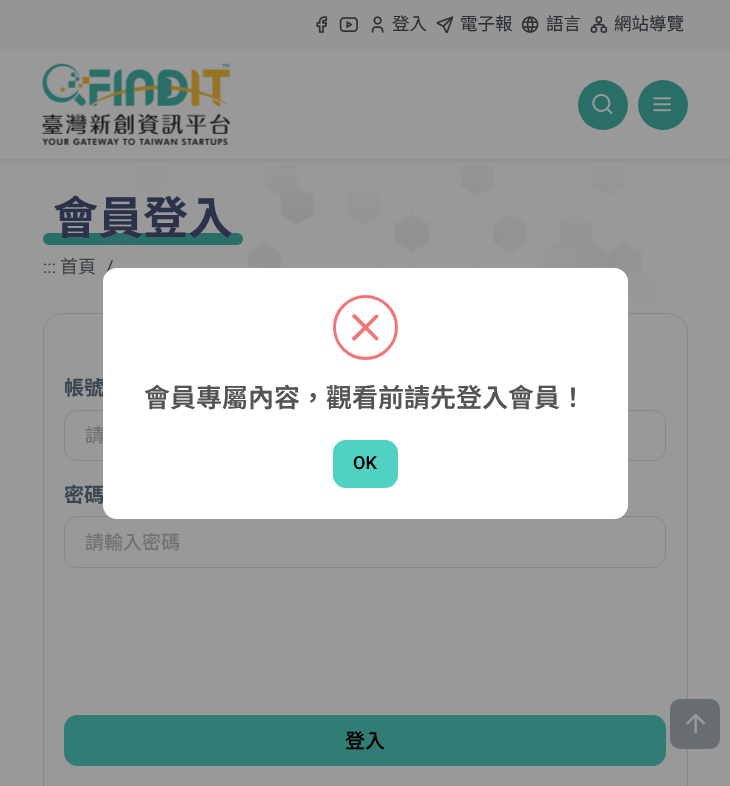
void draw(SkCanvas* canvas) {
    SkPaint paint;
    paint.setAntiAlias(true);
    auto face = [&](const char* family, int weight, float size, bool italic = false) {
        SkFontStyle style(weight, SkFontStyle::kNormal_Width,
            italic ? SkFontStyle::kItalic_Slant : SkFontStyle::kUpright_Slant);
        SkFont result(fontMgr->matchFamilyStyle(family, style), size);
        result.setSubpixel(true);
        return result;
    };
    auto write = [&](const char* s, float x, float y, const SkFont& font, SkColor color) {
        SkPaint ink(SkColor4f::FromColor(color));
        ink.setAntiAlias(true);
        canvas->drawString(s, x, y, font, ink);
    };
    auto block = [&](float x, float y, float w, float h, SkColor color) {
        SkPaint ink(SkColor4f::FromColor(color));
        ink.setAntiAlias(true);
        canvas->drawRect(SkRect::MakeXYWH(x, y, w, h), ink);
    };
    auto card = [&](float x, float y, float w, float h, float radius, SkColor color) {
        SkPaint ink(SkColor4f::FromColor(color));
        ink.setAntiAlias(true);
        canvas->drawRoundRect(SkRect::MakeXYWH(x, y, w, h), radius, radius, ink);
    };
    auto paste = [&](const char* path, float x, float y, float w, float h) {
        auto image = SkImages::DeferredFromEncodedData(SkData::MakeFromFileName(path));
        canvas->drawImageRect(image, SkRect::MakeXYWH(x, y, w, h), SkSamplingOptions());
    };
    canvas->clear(SkColorSetRGB(153, 153, 153));
    card(43, 233, 200, 12, 6, SkColorSetRGB(41, 110, 103));
    paste("pic10.png", 100, 165, 556, 144);
    paint.setColor(SkColorSetARGB(26, 0, 0, 0));
    paint.setMaskFilter(SkMaskFilter::MakeBlur(kNormal_SkBlurStyle, 3));
    canvas->drawRect(SkRect::MakeXYWH(0, 1, 730, 159), paint);
    paint.setMaskFilter(nullptr);
    block(0, 50, 730, 109, SkColorSetRGB(153, 153, 153));
    block(0, 0, 730, 50, SkColorSetRGB(149, 149, 150));
    paste("pic1.png", 316, 16, 12, 17);
    paste("pic2.png", 339, 17, 19, 15);
    paste("pic3.png", 371, 16, 13, 17);
    auto kFont1 = face("Noto Sans TC", 400, 17.5f);
    write("登入", 392, 30, kFont1, SkColorSetRGB(44, 48, 52));
    paste("pic4.png", 436, 16, 18, 18);
    write("電子報", 460, 30, kFont1, SkColorSetRGB(44, 48, 52));
    paste("pic5.png", 521, 16, 18, 17);
    write("語言", 546, 30, kFont1, SkColorSetRGB(44, 48, 52));
    paste("pic6.png", 590, 16, 18, 17);
    write("網站導覽", 614, 30, kFont1, SkColorSetRGB(44, 48, 52));
    paste("pic7.png", 42, 63, 189, 82);
    paint.setColor(SkColorSetRGB(41, 110, 103));
    canvas->drawCircle(603, 105, 25, paint);
    paste("pic8.png", 592, 93, 21, 22);
    canvas->drawCircle(663, 105, 25, paint);
    paste("pic9.png", 653, 97, 18, 15);
    auto kFont2 = face("Noto Sans TC", 700, 45);
    write("會員登入", 53, 234, kFont2, SkColorSetRGB(44, 50, 73));
    auto kFont3 = face("Roboto", 400, 18);
    write(":::", 43, 273, kFont3, SkColorSetRGB(65, 70, 75));
    auto kFont4 = face("Noto Sans TC", 400, 18);
    write("首頁", 60, 273, kFont4, SkColorSetRGB(65, 70, 75));
    write("/", 106, 273, kFont3, SkColorSetRGB(61, 61, 61));
    paint.setStyle(SkPaint::kStroke_Style);
    paint.setStrokeWidth(1);
    paint.setColor(SkColorSetRGB(133, 136, 138));
    canvas->drawRoundRect(SkRect::MakeXYWH(43.5f, 313.5f, 644, 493), 19.5f, 19.5f, paint);
    auto kFont5 = face("Noto Sans TC", 700, 20);
    write("帳號", 64, 395, kFont5, SkColorSetRGB(60, 70, 83));
    canvas->drawRoundRect(SkRect::MakeXYWH(64.5f, 410.5f, 601, 50), 12.5f, 12.5f, paint);
    auto kFont6 = face("Noto Sans TC", 500, 19);
    write("請", 85, 442, kFont6, SkColorSetRGB(115, 115, 115));
    write("密碼", 64, 502, kFont5, SkColorSetRGB(60, 70, 83));
    canvas->drawRoundRect(SkRect::MakeXYWH(64.5f, 516.5f, 601, 51), 12.5f, 12.5f, paint);
    write("請輸入密碼", 85, 549, kFont6, SkColorSetRGB(115, 115, 115));
    paint.setStyle(SkPaint::kFill_Style);
    paint.setColor(SkColorSetRGB(49, 125, 118));
    canvas->drawRoundRect(SkRect::MakeXYWH(64.5f, 715.5f, 601, 50), 12.5f, 12.5f, paint);
    paint.setStyle(SkPaint::kStroke_Style);
    canvas->drawRoundRect(SkRect::MakeXYWH(64.5f, 715.5f, 601, 50), 12.5f, 12.5f, paint);
    auto kFont7 = face("Noto Sans TC", 500, 20);
    write("登入", 345, 748, kFont7, SK_ColorBLACK);
    card(670, 699, 50, 50, 10, SkColorSetRGB(104, 109, 113));
    paste("pic11.png", 686, 713, 20, 21);
    card(103, 268, 525, 251, 14, SK_ColorWHITE);
    paint.setStrokeWidth(3);
    paint.setColor(SkColorSetRGB(242, 116, 116));
    canvas->drawCircle(365.5f, 327.5f, 31, paint);
    paint.setStyle(SkPaint::kFill_Style);
    canvas->drawPath(SkPathBuilder().moveTo(355.5f, 314.5f).lineTo(378.5f, 338).cubicTo(379, 339, 377.5f, 341, 376, 340.5f).lineTo(352.5f, 317).lineTo(352, 316).cubicTo(352.5f, 315, 354, 313.5f, 355.5f, 314.5f).close().detach(), paint);
    canvas->drawPath(SkPathBuilder().moveTo(352.5f, 337.5f).lineTo(376, 314.5f).cubicTo(377.5f, 314, 379, 316, 378.5f, 317).lineTo(355, 340.5f).lineTo(354, 340.5f).cubicTo(352.5f, 340.5f, 351.5f, 338.5f, 352.5f, 337.5f).close().detach(), paint);
    auto kFont8 = face("Noto Sans TC", 600, 26);
    write("會員專屬內容，觀看前請先登入會員！", 144, 407, kFont8, SkColorSetRGB(84, 84, 84));
    card(333, 440, 65, 48, 13, SkColorSetRGB(81, 209, 196));
    auto kFont9 = face("Roboto", 500, 18);
    write("OK", 353, 469, kFont9, SK_ColorBLACK);
}
